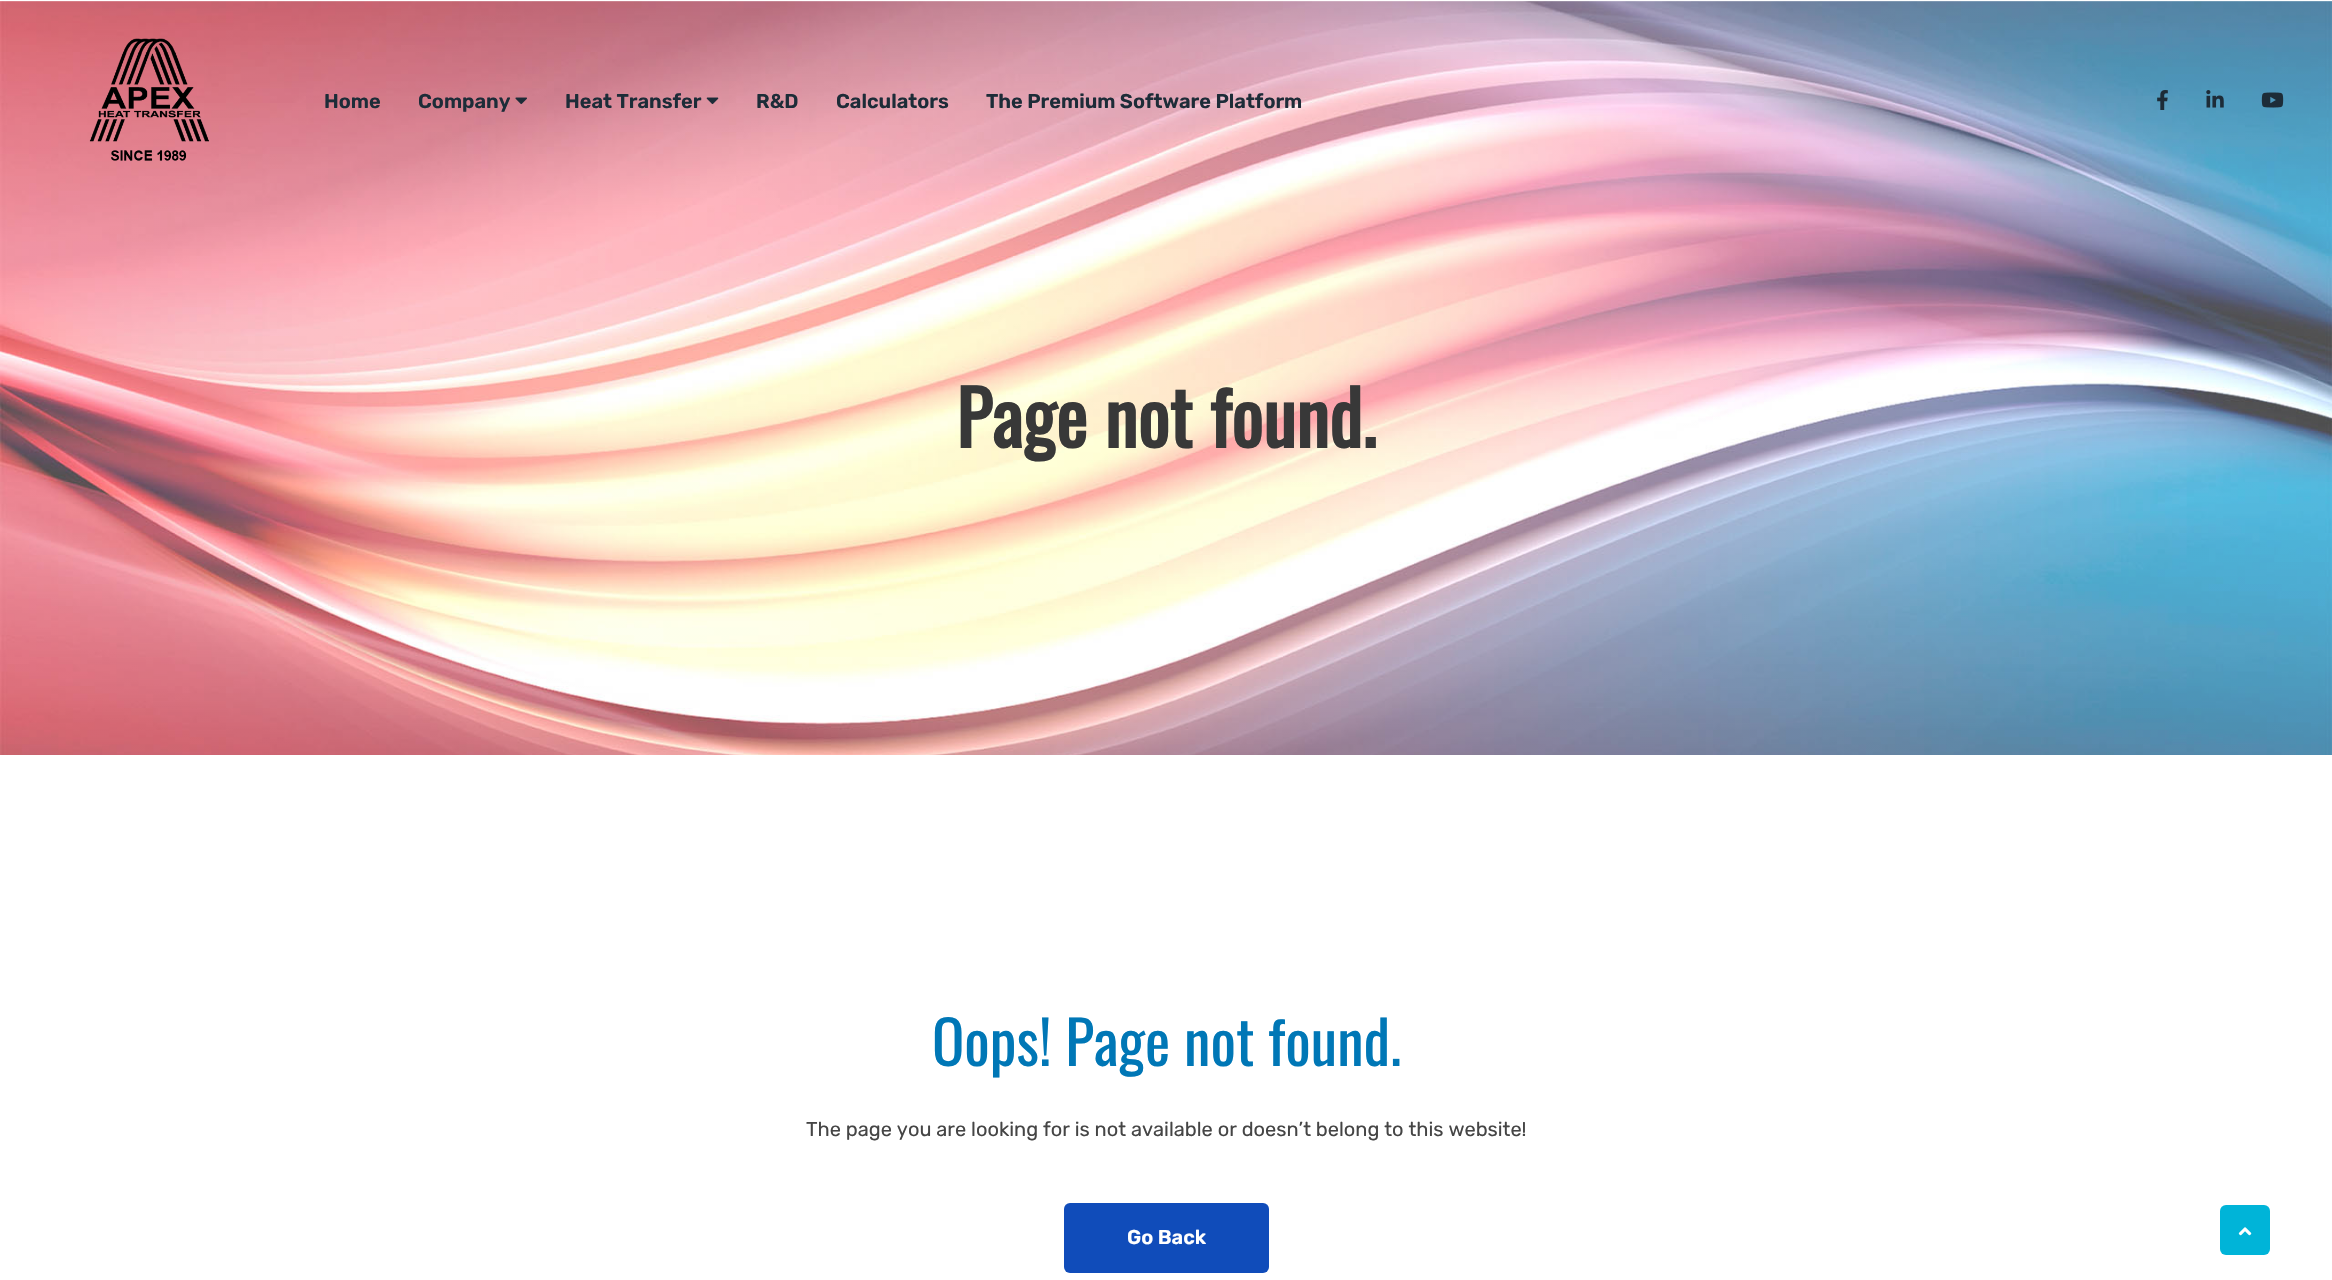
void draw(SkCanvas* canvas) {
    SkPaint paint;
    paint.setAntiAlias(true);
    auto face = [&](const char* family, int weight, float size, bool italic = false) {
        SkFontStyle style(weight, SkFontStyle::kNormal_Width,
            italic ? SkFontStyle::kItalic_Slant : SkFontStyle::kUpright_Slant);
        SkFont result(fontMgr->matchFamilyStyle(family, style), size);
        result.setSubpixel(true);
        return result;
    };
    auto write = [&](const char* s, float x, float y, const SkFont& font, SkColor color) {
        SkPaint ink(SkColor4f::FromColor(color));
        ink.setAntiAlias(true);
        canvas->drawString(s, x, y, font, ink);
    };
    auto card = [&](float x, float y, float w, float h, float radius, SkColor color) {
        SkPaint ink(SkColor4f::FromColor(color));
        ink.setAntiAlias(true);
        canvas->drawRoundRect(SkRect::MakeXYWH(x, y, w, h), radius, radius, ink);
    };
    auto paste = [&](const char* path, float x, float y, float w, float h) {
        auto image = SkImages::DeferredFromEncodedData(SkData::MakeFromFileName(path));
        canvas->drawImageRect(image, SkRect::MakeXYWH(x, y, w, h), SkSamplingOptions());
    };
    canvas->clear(SK_ColorWHITE);
    paste("pic7.png", 0, 1, 2332, 754);
    paste("pic1.png", 89, 38, 120, 123);
    auto kFont1 = face("Rubik", 600, 20);
    write("Home", 324, 108, kFont1, SkColorSetRGB(29, 44, 56));
    write("Company", 418, 108, kFont1, SkColorSetRGB(29, 44, 56));
    paste("pic2.png", 515, 97, 12, 8);
    write("Heat Transfer", 565, 108, kFont1, SkColorSetRGB(29, 44, 56));
    paste("pic3.png", 706, 97, 13, 8);
    write("R&D", 756, 108, kFont1, SkColorSetRGB(29, 44, 56));
    write("Calculators", 836, 108, kFont1, SkColorSetRGB(29, 44, 56));
    write("The Premium Software Platform", 986, 108, kFont1, SkColorSetRGB(29, 44, 56));
    paste("pic4.png", 2157, 90, 11, 20);
    paste("pic5.png", 2206, 90, 18, 18);
    paste("pic6.png", 2261, 92, 23, 16);
    auto kFont2 = face("Oswald", 700, 75);
    write("Page not found.", 956, 448, kFont2, SkColorSetRGB(56, 56, 56));
    auto kFont3 = face("Oswald", 400, 60);
    write("Oops! Page not found.", 932, 1066, kFont3, SkColorSetRGB(0, 119, 182));
    auto kFont4 = face("Rubik", 400, 20);
    write("The page you are looking for is not available or doesn’t belong to this website!", 806, 1136, kFont4, SkColorSetRGB(69, 69, 69));
    card(1064, 1203, 205, 70, 6, SkColorSetRGB(16, 76, 186));
    write("Go Back", 1127, 1244, kFont1, SK_ColorWHITE);
    card(2220, 1205, 50, 50, 6, SkColorSetRGB(0, 180, 216));
    paste("pic8.png", 2238, 1227, 14, 9);
}
